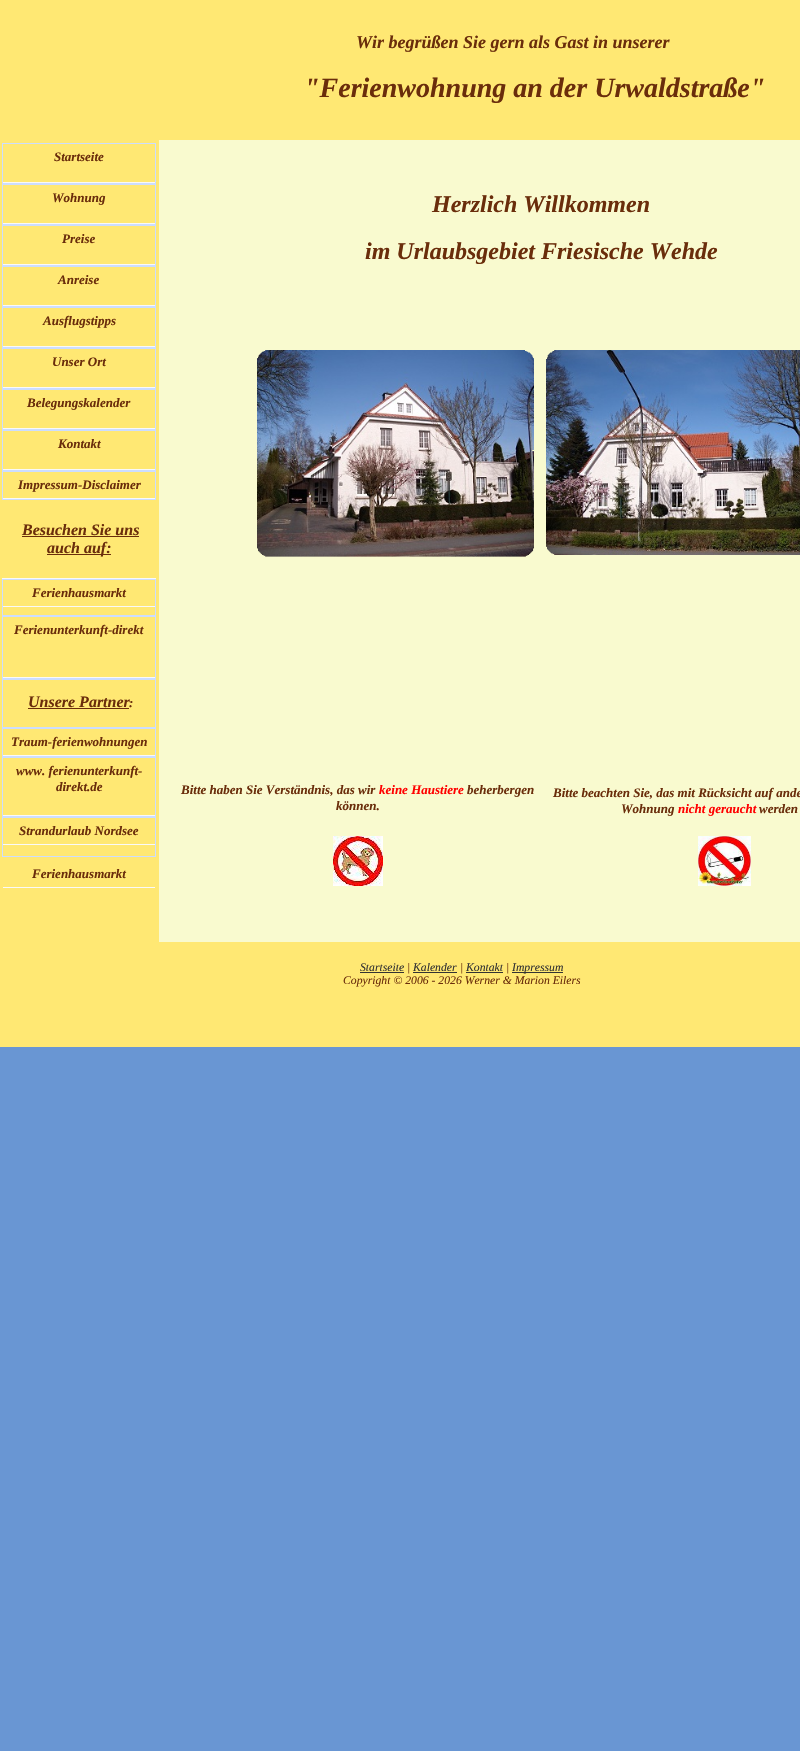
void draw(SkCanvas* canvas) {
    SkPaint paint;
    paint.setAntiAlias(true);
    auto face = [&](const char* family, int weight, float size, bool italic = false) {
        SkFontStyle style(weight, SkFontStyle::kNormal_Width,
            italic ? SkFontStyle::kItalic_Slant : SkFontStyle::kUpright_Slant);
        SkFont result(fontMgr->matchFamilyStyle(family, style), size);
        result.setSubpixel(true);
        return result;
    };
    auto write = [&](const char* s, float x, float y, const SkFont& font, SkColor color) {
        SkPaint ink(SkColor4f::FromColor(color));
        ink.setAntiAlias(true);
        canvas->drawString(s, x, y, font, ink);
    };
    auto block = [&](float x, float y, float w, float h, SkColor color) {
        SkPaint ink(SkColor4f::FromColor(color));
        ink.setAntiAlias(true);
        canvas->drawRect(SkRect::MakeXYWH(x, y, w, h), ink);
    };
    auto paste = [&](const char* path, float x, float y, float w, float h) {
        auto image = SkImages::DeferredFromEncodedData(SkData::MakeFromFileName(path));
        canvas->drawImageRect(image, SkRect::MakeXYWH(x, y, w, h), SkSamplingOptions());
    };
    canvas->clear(SkColorSetRGB(105, 150, 211));
    block(0, 0, 800, 1047, SkColorSetRGB(255, 232, 115));
    auto kFont1 = face("Liberation Serif", 700, 18, true);
    write("Wir begrüßen Sie gern als Gast in unserer", 356, 48, kFont1, SkColorSetRGB(106, 45, 11));
    auto kFont2 = face("Liberation Serif", 700, 28, true);
    write("\"Ferienwohnung an der Urwaldstraße\"", 304, 97, kFont2, SkColorSetRGB(106, 45, 11));
    paint.setStyle(SkPaint::kStroke_Style);
    paint.setStrokeWidth(1);
    paint.setColor(SkColorSetRGB(204, 221, 255));
    canvas->drawRect(SkRect::MakeXYWH(2.5f, 143.5f, 153, 40), paint);
    block(3, 182, 152, 1, SkColorSetRGB(249, 249, 249));
    auto kFont3 = face("Liberation Serif", 700, 13, true);
    write("Startseite", 54, 161, kFont3, SkColorSetRGB(106, 45, 11));
    canvas->drawRect(SkRect::MakeXYWH(2.5f, 184.5f, 153, 40), paint);
    block(3, 223, 152, 1, SkColorSetRGB(249, 249, 249));
    write("Wohnung", 52, 202, kFont3, SkColorSetRGB(106, 45, 11));
    canvas->drawRect(SkRect::MakeXYWH(2.5f, 225.5f, 153, 40), paint);
    block(3, 264, 152, 1, SkColorSetRGB(249, 249, 249));
    write("Preise", 62, 243, kFont3, SkColorSetRGB(106, 45, 11));
    canvas->drawRect(SkRect::MakeXYWH(2.5f, 266.5f, 153, 40), paint);
    block(3, 305, 152, 1, SkColorSetRGB(249, 249, 249));
    write("Anreise", 58, 284, kFont3, SkColorSetRGB(106, 45, 11));
    canvas->drawRect(SkRect::MakeXYWH(2.5f, 307.5f, 153, 40), paint);
    block(3, 346, 152, 1, SkColorSetRGB(249, 249, 249));
    write("Ausflugstipps", 43, 325, kFont3, SkColorSetRGB(106, 45, 11));
    canvas->drawRect(SkRect::MakeXYWH(2.5f, 348.5f, 153, 40), paint);
    block(3, 387, 152, 1, SkColorSetRGB(249, 249, 249));
    write("Unser Ort", 52, 366, kFont3, SkColorSetRGB(106, 45, 11));
    canvas->drawRect(SkRect::MakeXYWH(2.5f, 389.5f, 153, 40), paint);
    block(3, 428, 152, 1, SkColorSetRGB(249, 249, 249));
    write("Belegungskalender", 27, 407, kFont3, SkColorSetRGB(106, 45, 11));
    canvas->drawRect(SkRect::MakeXYWH(2.5f, 430.5f, 153, 40), paint);
    block(3, 469, 152, 1, SkColorSetRGB(249, 249, 249));
    write("Kontakt", 58, 448, kFont3, SkColorSetRGB(106, 45, 11));
    canvas->drawRect(SkRect::MakeXYWH(2.5f, 471.5f, 153, 28), paint);
    block(3, 498, 152, 1, SkColorSetRGB(249, 249, 249));
    write("Impressum-Disclaimer", 18, 489, kFont3, SkColorSetRGB(106, 45, 11));
    block(2, 578, 154, 1, SkColorSetRGB(249, 249, 249));
    auto kFont4 = face("Liberation Serif", 700, 16, true);
    write("Besuchen Sie uns", 22, 535, kFont4, SkColorSetRGB(106, 45, 11));
    block(22, 536, 117, 1, SkColorSetRGB(106, 45, 11));
    block(47, 554, 64, 1, SkColorSetRGB(106, 45, 11));
    write("auch auf:", 47, 553, kFont4, SkColorSetRGB(106, 45, 11));
    canvas->drawRect(SkRect::MakeXYWH(2.5f, 579.5f, 153, 36), paint);
    block(3, 606, 152, 1, SkColorSetRGB(249, 249, 249));
    write("Ferienhausmarkt", 32, 597, kFont3, SkColorSetRGB(106, 45, 11));
    canvas->drawRect(SkRect::MakeXYWH(2.5f, 616.5f, 153, 62), paint);
    block(3, 677, 152, 1, SkColorSetRGB(249, 249, 249));
    write("Ferienunterkunft-direkt", 14, 634, kFont3, SkColorSetRGB(106, 45, 11));
    canvas->drawRect(SkRect::MakeXYWH(2.5f, 679.5f, 153, 48), paint);
    write("Unsere Partner", 28, 707, kFont4, SkColorSetRGB(106, 45, 11));
    write(":", 129, 707, kFont3, SkColorSetRGB(106, 45, 11));
    block(28, 708, 101, 1, SkColorSetRGB(106, 45, 11));
    canvas->drawRect(SkRect::MakeXYWH(2.5f, 728.5f, 153, 28), paint);
    block(3, 755, 152, 1, SkColorSetRGB(249, 249, 249));
    write("Traum-ferienwohnungen", 11, 746, kFont3, SkColorSetRGB(106, 45, 11));
    canvas->drawRect(SkRect::MakeXYWH(2.5f, 757.5f, 153, 59), paint);
    block(3, 815, 152, 1, SkColorSetRGB(249, 249, 249));
    write("www. ferienunterkunft-", 16, 775, kFont3, SkColorSetRGB(106, 45, 11));
    write("direkt.de", 56, 791, kFont3, SkColorSetRGB(106, 45, 11));
    canvas->drawRect(SkRect::MakeXYWH(2.5f, 817.5f, 153, 39), paint);
    block(3, 844, 152, 1, SkColorSetRGB(249, 249, 249));
    write("Strandurlaub Nordsee", 19, 835, kFont3, SkColorSetRGB(106, 45, 11));
    block(3, 887, 152, 1, SkColorSetRGB(249, 249, 249));
    write("Ferienhausmarkt", 32, 878, kFont3, SkColorSetRGB(106, 45, 11));
    block(159, 140, 641, 802, SkColorSetRGB(249, 250, 207));
    auto kFont5 = face("Liberation Serif", 700, 24, true);
    write("Herzlich Willkommen", 432, 212, kFont5, SkColorSetRGB(106, 45, 11));
    write("im Urlaubsgebiet Friesische Wehde", 365, 259, kFont5, SkColorSetRGB(106, 45, 11));
    paste("pic1.png", 257, 350, 277, 207);
    paste("pic2.png", 546, 350, 254, 205);
    write("Bitte haben Sie Verständnis, das wir", 181, 794, kFont3, SkColorSetRGB(106, 45, 11));
    write("keine Haustiere", 379, 794, kFont3, SkColorSetRGB(255, 0, 0));
    write("beherbergen", 467, 794, kFont3, SkColorSetRGB(106, 45, 11));
    write("können.", 336, 810, kFont3, SkColorSetRGB(106, 45, 11));
    write("Bitte beachten Sie, das mit Rücksicht auf ande", 553, 797, kFont3, SkColorSetRGB(106, 45, 11));
    write("Wohnung", 621, 813, kFont3, SkColorSetRGB(106, 45, 11));
    write("nicht geraucht", 678, 813, kFont3, SkColorSetRGB(255, 0, 0));
    write("werden", 759, 813, kFont3, SkColorSetRGB(106, 45, 11));
    paste("pic3.png", 333, 836, 50, 50);
    paste("pic4.png", 698, 836, 53, 50);
    auto kFont6 = face("Liberation Serif", 400, 11.7f, true);
    write("Startseite", 360, 971, kFont6, SkColorSetRGB(51, 51, 51));
    block(360, 972, 44, 1, SkColorSetRGB(51, 51, 51));
    write("|", 407, 971, kFont6, SkColorSetRGB(106, 45, 11));
    write("Kalender", 413, 971, kFont6, SkColorSetRGB(51, 51, 51));
    block(413, 972, 44, 1, SkColorSetRGB(51, 51, 51));
    write("|", 460, 971, kFont6, SkColorSetRGB(106, 45, 11));
    write("Kontakt", 466, 971, kFont6, SkColorSetRGB(51, 51, 51));
    block(466, 972, 37, 1, SkColorSetRGB(51, 51, 51));
    write("|", 506, 971, kFont6, SkColorSetRGB(106, 45, 11));
    block(512, 972, 51, 1, SkColorSetRGB(51, 51, 51));
    write("Impressum", 512, 971, kFont6, SkColorSetRGB(51, 51, 51));
    write("Copyright © 2006 - 2026 Werner & Marion Eilers", 343, 984, kFont6, SkColorSetRGB(106, 45, 11));
}
